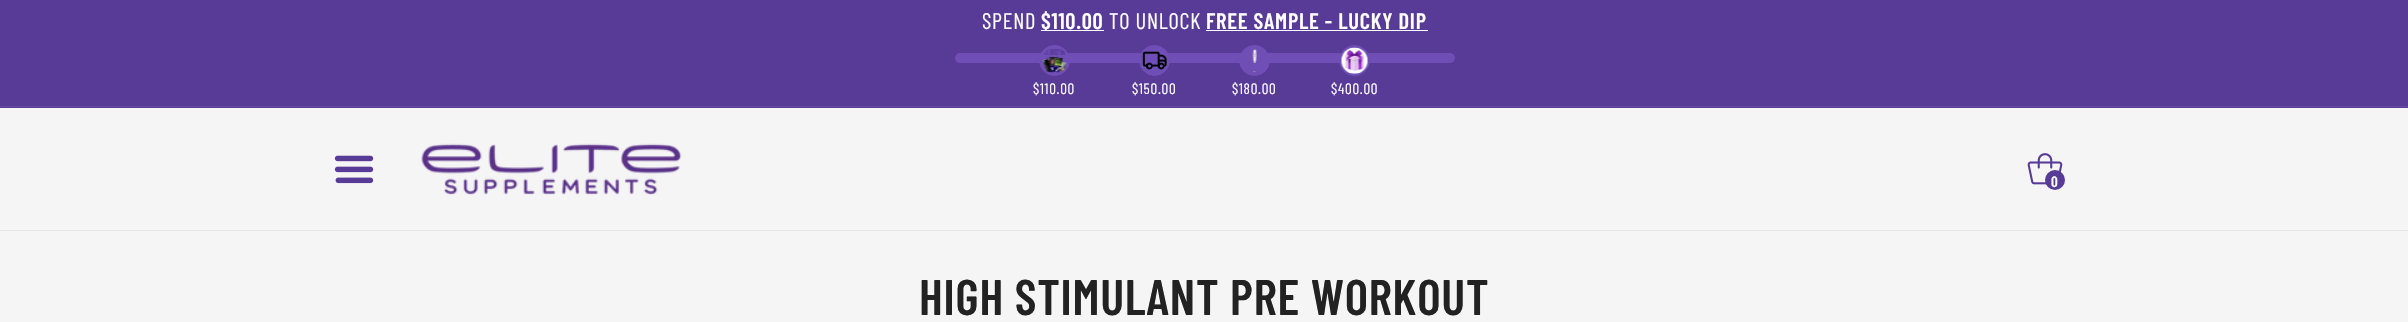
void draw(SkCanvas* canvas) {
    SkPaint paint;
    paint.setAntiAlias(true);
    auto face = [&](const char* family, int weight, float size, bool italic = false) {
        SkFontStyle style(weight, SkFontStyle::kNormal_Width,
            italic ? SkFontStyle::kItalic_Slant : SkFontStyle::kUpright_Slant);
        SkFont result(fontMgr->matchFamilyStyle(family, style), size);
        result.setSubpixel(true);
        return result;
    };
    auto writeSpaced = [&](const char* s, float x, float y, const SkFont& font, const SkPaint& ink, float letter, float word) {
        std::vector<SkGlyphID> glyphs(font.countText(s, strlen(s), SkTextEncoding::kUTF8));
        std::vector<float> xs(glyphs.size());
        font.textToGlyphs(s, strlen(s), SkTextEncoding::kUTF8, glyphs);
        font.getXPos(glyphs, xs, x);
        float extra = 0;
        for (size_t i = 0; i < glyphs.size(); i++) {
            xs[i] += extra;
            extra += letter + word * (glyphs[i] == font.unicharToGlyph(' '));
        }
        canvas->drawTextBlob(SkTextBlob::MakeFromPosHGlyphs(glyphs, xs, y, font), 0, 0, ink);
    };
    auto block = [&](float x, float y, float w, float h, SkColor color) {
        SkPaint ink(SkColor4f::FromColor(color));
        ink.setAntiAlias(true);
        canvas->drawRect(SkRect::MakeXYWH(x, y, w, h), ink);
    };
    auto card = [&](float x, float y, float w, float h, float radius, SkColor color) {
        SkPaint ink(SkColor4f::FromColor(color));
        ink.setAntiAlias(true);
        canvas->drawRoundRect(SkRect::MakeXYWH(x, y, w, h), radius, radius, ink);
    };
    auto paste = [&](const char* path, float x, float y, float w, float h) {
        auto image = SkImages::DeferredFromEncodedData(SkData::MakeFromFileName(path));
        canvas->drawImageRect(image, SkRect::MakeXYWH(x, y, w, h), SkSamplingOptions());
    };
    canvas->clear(SkColorSetRGB(245, 245, 245));
    block(0, 0, 2408, 108, SkColorSetRGB(88, 58, 151));
    block(0, 106, 2408, 1, SkColorSetRGB(101, 74, 159));
    auto kFont1 = face("Barlow Condensed", 400, 22.5f);
    paint.setColor(SK_ColorWHITE);
    writeSpaced("SPEND", 982, 29, kFont1, paint, 0.75f, 0);
    block(1041, 30, 63, 1, SK_ColorWHITE);
    auto kFont2 = face("Barlow Condensed", 600, 22.5f);
    writeSpaced("$110.00", 1041, 29, kFont2, paint, 0.75f, 0);
    writeSpaced("TO UNLOCK", 1109, 29, kFont1, paint, 0.75f, 0);
    writeSpaced("FREE SAMPLE - LUCKY DIP", 1206, 29, kFont2, paint, 0.75f, 0);
    block(1206, 30, 222, 1, SK_ColorWHITE);
    card(955, 53, 500, 10, 5, SkColorSetRGB(111, 78, 182));
    paint.setColor(SkColorSetRGB(111, 78, 182));
    canvas->drawCircle(1054.5f, 60.5f, 15, paint);
    paint.setStyle(SkPaint::kStroke_Style);
    paint.setStrokeWidth(1);
    canvas->drawCircle(1054.5f, 60.5f, 15, paint);
    paste("pic1.png", 1042, 49, 25, 24);
    auto kFont3 = face("Barlow Condensed", 400, 15);
    paint.setStyle(SkPaint::kFill_Style);
    paint.setColor(SK_ColorWHITE);
    writeSpaced("$110.00", 1033, 94, kFont3, paint, 0.75f, 0);
    paint.setColor(SkColorSetRGB(111, 78, 182));
    canvas->drawCircle(1154.5f, 60.5f, 15, paint);
    paint.setStyle(SkPaint::kStroke_Style);
    canvas->drawCircle(1154.5f, 60.5f, 15, paint);
    paste("pic2.png", 1142, 51, 25, 19);
    paint.setStyle(SkPaint::kFill_Style);
    paint.setColor(SK_ColorWHITE);
    writeSpaced("$150.00", 1132, 94, kFont3, paint, 0.75f, 0);
    paint.setColor(SkColorSetRGB(111, 78, 182));
    canvas->drawCircle(1254.5f, 60.5f, 15, paint);
    paint.setStyle(SkPaint::kStroke_Style);
    canvas->drawCircle(1254.5f, 60.5f, 15, paint);
    paste("pic3.png", 1252, 49, 5, 24);
    paint.setStyle(SkPaint::kFill_Style);
    paint.setColor(SK_ColorWHITE);
    writeSpaced("$180.00", 1232, 94, kFont3, paint, 0.75f, 0);
    paint.setColor(SkColorSetRGB(111, 78, 182));
    canvas->drawCircle(1354.5f, 60.5f, 15, paint);
    paint.setStyle(SkPaint::kStroke_Style);
    canvas->drawCircle(1354.5f, 60.5f, 15, paint);
    paste("pic4.png", 1341, 47, 27, 27);
    paint.setStyle(SkPaint::kFill_Style);
    paint.setColor(SK_ColorWHITE);
    writeSpaced("$400.00", 1331, 94, kFont3, paint, 0.75f, 0);
    block(0, 230, 2408, 1, SkColorSetRGB(228, 228, 228));
    paste("pic5.png", 334, 155, 40, 29);
    paste("pic6.png", 421, 143, 261, 52);
    paste("pic7.png", 2027, 153, 36, 32);
    paint.setColor(SkColorSetRGB(88, 58, 151));
    canvas->drawCircle(2055, 180, 10, paint);
    auto kFont4 = face("Barlow Condensed", 600, 15);
    paint.setColor(SK_ColorWHITE);
    writeSpaced("0", 2051, 187, kFont4, paint, 0.75f, 0);
    auto kFont5 = face("Barlow Condensed", 600, 50);
    paint.setColor(SkColorSetRGB(35, 34, 34));
    writeSpaced("HIGH STIMULANT PRE WORKOUT", 919, 315, kFont5, paint, 0.75f, 0);
}
